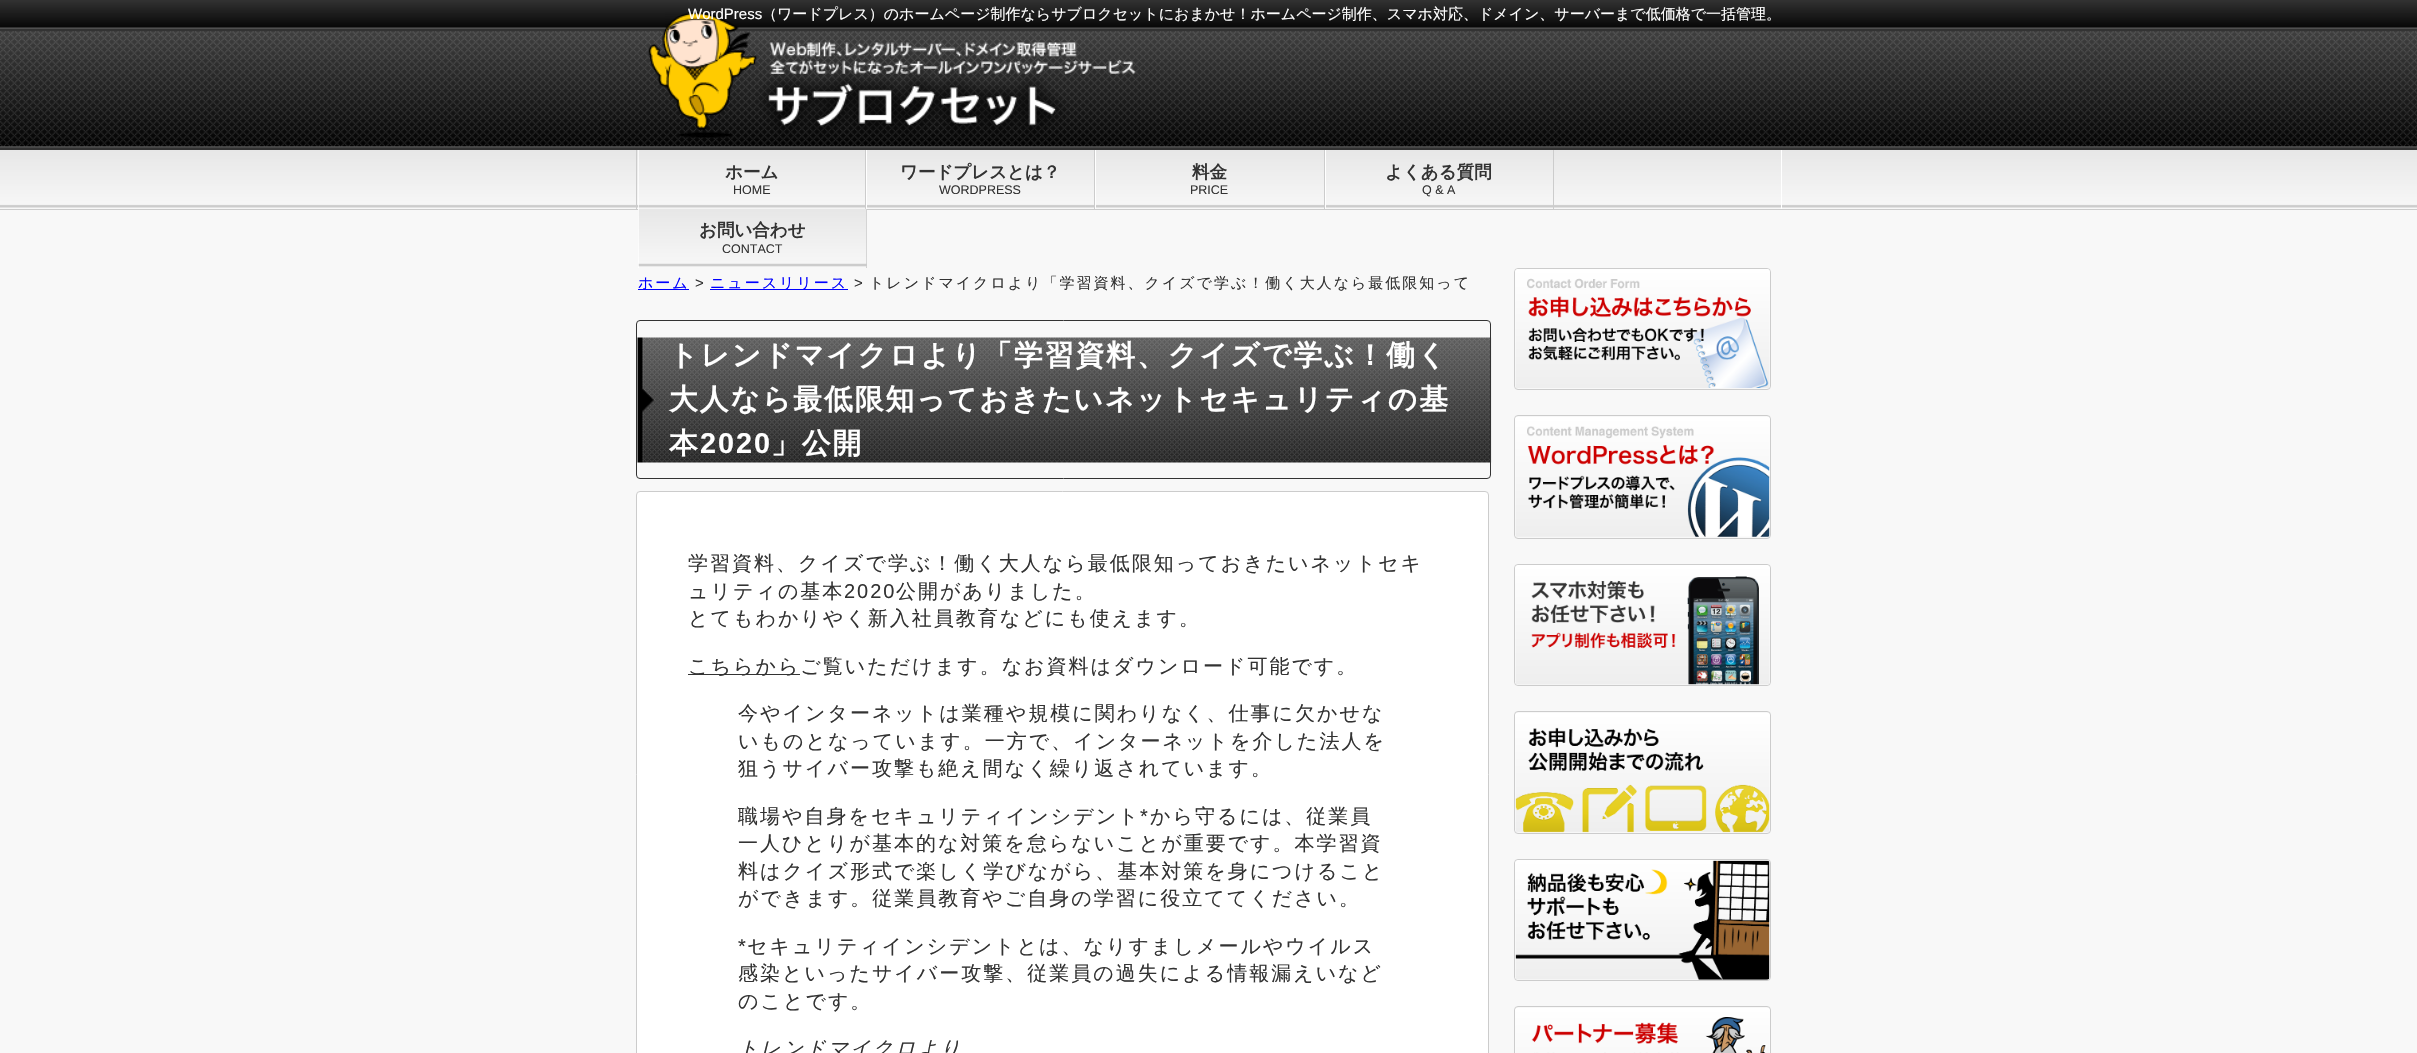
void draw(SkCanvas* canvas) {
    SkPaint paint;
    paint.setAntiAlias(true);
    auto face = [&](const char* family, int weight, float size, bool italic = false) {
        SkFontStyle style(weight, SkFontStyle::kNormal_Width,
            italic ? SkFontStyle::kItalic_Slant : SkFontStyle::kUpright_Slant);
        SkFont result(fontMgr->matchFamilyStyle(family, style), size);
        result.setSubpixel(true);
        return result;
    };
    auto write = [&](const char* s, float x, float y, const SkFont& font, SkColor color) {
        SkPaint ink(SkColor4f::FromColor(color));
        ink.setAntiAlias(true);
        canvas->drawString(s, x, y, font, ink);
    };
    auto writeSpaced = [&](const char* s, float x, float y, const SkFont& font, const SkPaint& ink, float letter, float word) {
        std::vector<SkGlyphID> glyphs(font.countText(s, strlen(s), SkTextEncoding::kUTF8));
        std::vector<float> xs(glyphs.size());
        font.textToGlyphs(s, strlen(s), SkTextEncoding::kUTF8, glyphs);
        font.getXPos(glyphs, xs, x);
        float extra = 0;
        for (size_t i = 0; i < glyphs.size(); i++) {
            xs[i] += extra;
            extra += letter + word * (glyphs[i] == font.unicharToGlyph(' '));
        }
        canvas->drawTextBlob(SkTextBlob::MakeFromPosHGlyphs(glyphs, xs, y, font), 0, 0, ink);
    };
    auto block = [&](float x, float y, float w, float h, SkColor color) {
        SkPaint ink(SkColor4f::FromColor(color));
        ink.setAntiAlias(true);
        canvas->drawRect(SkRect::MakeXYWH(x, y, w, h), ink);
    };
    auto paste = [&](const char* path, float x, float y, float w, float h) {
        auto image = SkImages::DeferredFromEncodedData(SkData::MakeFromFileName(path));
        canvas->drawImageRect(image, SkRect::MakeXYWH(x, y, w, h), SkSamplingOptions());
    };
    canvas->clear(SkColorSetRGB(248, 248, 248));
    paste("pic1.png", 0, 0, 2417, 150);
    paste("pic2.png", 665, 12, 74, 18);
    auto kFont1 = face("Liberation Sans", 400, 15);
    write("WordPress", 688, 19, kFont1, SK_ColorWHITE);
    auto kFont2 = face("WenQuanYi Zen Hei", 500, 15);
    write("（ワードプレス）のホームページ制作ならサブロクセットにおまかせ！ホームページ制作、スマホ対応、ドメイン、サーバーまで低価格で一括管理。", 762, 19, kFont2, SK_ColorWHITE);
    paste("pic3.png", 648, 30, 488, 108);
    paste("pic4.png", 0, 150, 2417, 58);
    block(0, 209, 2417, 1, SkColorSetRGB(204, 204, 204));
    block(1781, 150, 1, 59, SK_ColorWHITE);
    block(636, 150, 1, 59, SkColorSetRGB(204, 204, 204));
    block(865, 150, 1, 59, SkColorSetRGB(204, 204, 204));
    block(638, 150, 1, 118, SK_ColorWHITE);
    paste("pic5.png", 638, 150, 1, 58);
    auto kFont3 = face("WenQuanYi Zen Hei", 700, 17.5f);
    write("ホーム", 725, 178, kFont3, SkColorSetRGB(51, 51, 51));
    auto kFont4 = face("Liberation Sans", 400, 12.5f);
    write("HOME", 733, 194, kFont4, SkColorSetRGB(51, 51, 51));
    block(1094, 150, 1, 59, SkColorSetRGB(204, 204, 204));
    block(866, 150, 1, 59, SK_ColorWHITE);
    write("ワードプレスとは？", 900, 178, kFont3, SkColorSetRGB(51, 51, 51));
    write("WORDPRESS", 939, 194, kFont4, SkColorSetRGB(51, 51, 51));
    block(1324, 150, 1, 59, SkColorSetRGB(204, 204, 204));
    block(1095, 150, 1, 59, SK_ColorWHITE);
    write("料金", 1192, 178, kFont3, SkColorSetRGB(51, 51, 51));
    write("PRICE", 1190, 194, kFont4, SkColorSetRGB(51, 51, 51));
    block(1553, 150, 1, 59, SkColorSetRGB(204, 204, 204));
    block(1325, 150, 1, 59, SK_ColorWHITE);
    write("よくある質問", 1385, 178, kFont3, SkColorSetRGB(51, 51, 51));
    write("Q & A", 1422, 194, kFont4, SkColorSetRGB(51, 51, 51));
    block(866, 209, 1, 59, SkColorSetRGB(204, 204, 204));
    paste("pic6.png", 638, 208, 229, 60);
    write("お問い合わせ", 699, 236, kFont3, SkColorSetRGB(51, 51, 51));
    write("CONTACT", 722, 253, kFont4, SkColorSetRGB(51, 51, 51));
    block(638, 289, 51, 1, SkColorSetRGB(0, 0, 255));
    paint.setColor(SkColorSetRGB(0, 0, 255));
    writeSpaced("ホーム", 638, 288, kFont2, paint, 2, 0);
    paint.setColor(SkColorSetRGB(51, 51, 51));
    writeSpaced(">", 695, 288, kFont1, paint, 2, 0);
    block(710, 289, 138, 1, SkColorSetRGB(0, 0, 255));
    paint.setColor(SkColorSetRGB(0, 0, 255));
    writeSpaced("ニュースリリース", 710, 288, kFont2, paint, 2, 0);
    paint.setColor(SkColorSetRGB(51, 51, 51));
    writeSpaced(">", 854, 288, kFont1, paint, 2, 0);
    writeSpaced("トレンドマイクロより「学習資料、クイズで学ぶ！働く大人なら最低限知って", 869, 288, kFont2, paint, 2, 0);
    paste("pic7.png", 637, 337, 855, 126);
    paint.setStyle(SkPaint::kStroke_Style);
    paint.setStrokeWidth(1);
    canvas->drawRoundRect(SkRect::MakeXYWH(636.5f, 320.5f, 854, 158), 3.5f, 3.5f, paint);
    auto kFont5 = face("WenQuanYi Zen Hei", 700, 28.75f);
    paint.setStyle(SkPaint::kFill_Style);
    paint.setColor(SK_ColorWHITE);
    writeSpaced("トレンドマイクロより「学習資料、クイズで学ぶ！働く", 669, 365, kFont5, paint, 2, 0);
    writeSpaced("大人なら最低限知っておきたいネットセキュリティの基", 669, 409, kFont5, paint, 2, 0);
    writeSpaced("本", 669, 453, kFont5, paint, 2, 0);
    auto kFont6 = face("Liberation Sans", 700, 28.75f);
    writeSpaced("2020", 700, 453, kFont6, paint, 2, 0);
    writeSpaced("」公開", 771, 453, kFont5, paint, 2, 0);
    canvas->drawRoundRect(SkRect::MakeXYWH(636.5f, 491.5f, 852, 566), 3.5f, 3.5f, paint);
    paint.setStyle(SkPaint::kStroke_Style);
    paint.setColor(SkColorSetRGB(204, 204, 204));
    canvas->drawRoundRect(SkRect::MakeXYWH(636.5f, 491.5f, 852, 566), 3.5f, 3.5f, paint);
    auto kFont7 = face("WenQuanYi Zen Hei", 500, 20);
    paint.setStyle(SkPaint::kFill_Style);
    paint.setColor(SkColorSetRGB(51, 51, 51));
    writeSpaced("学習資料、クイズで学ぶ！働く大人なら最低限知っておきたいネットセキ", 688, 570, kFont7, paint, 2, 0);
    writeSpaced("ュリティの基本", 688, 598, kFont7, paint, 2, 0);
    auto kFont8 = face("Liberation Sans", 400, 20);
    writeSpaced("2020", 844, 598, kFont8, paint, 2, 0);
    writeSpaced("公開がありました。", 896, 598, kFont7, paint, 2, 0);
    writeSpaced("とてもわかりやく新入社員教育などにも使えます。", 688, 625, kFont7, paint, 2, 0);
    block(688, 674, 112, 1, SkColorSetRGB(51, 51, 51));
    writeSpaced("こちらからご覧いただけます。なお資料はダウンロード可能です。", 688, 673, kFont7, paint, 2, 0);
    writeSpaced("今やインターネットは業種や規模に関わりなく、仕事に欠かせな", 738, 720, kFont7, paint, 2, 0);
    writeSpaced("いものとなっています。一方で、インターネットを介した法人を", 738, 748, kFont7, paint, 2, 0);
    writeSpaced("狙うサイバー攻撃も絶え間なく繰り返されています。", 738, 775, kFont7, paint, 2, 0);
    writeSpaced("職場や自身をセキュリティインシデント", 738, 823, kFont7, paint, 2, 0);
    writeSpaced("*", 1140, 823, kFont8, paint, 2, 0);
    writeSpaced("から守るには、従業員", 1150, 823, kFont7, paint, 2, 0);
    writeSpaced("一人ひとりが基本的な対策を怠らないことが重要です。本学習資", 738, 850, kFont7, paint, 2, 0);
    writeSpaced("料はクイズ形式で楽しく学びながら、基本対策を身につけること", 738, 878, kFont7, paint, 2, 0);
    writeSpaced("ができます。従業員教育やご自身の学習に役立ててください。", 738, 905, kFont7, paint, 2, 0);
    writeSpaced("*", 738, 953, kFont8, paint, 2, 0);
    writeSpaced("セキュリティインシデントとは、なりすましメールやウイルス", 747, 953, kFont7, paint, 2, 0);
    writeSpaced("感染といったサイバー攻撃、従業員の過失による情報漏えいなど", 738, 980, kFont7, paint, 2, 0);
    writeSpaced("のことです。", 738, 1008, kFont7, paint, 2, 0);
    auto kFont9 = face("WenQuanYi Zen Hei", 500, 20, true);
    writeSpaced("トレンドマイクロより", 738, 1055, kFont9, paint, 2, 0);
    paint.setStyle(SkPaint::kStroke_Style);
    paint.setColor(SkColorSetRGB(204, 204, 204));
    canvas->drawRoundRect(SkRect::MakeXYWH(1514.5f, 268.5f, 256, 121), 3.5f, 3.5f, paint);
    paste("pic8.png", 1515, 269, 255, 119);
    canvas->drawRoundRect(SkRect::MakeXYWH(1514.5f, 415.5f, 256, 123), 3.5f, 3.5f, paint);
    paste("pic9.png", 1515, 417, 255, 120);
    canvas->drawRoundRect(SkRect::MakeXYWH(1514.5f, 564.5f, 256, 121), 3.5f, 3.5f, paint);
    paste("pic10.png", 1515, 565, 255, 120);
    canvas->drawRoundRect(SkRect::MakeXYWH(1514.5f, 711.5f, 256, 122), 3.5f, 3.5f, paint);
    paste("pic11.png", 1515, 713, 255, 120);
    canvas->drawRoundRect(SkRect::MakeXYWH(1514.5f, 859.5f, 256, 121), 3.5f, 3.5f, paint);
    paste("pic12.png", 1515, 860, 255, 120);
    canvas->drawRoundRect(SkRect::MakeXYWH(1514.5f, 1006.5f, 256, 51), 3.5f, 3.5f, paint);
    paste("pic13.png", 1515, 1008, 255, 45);
}
